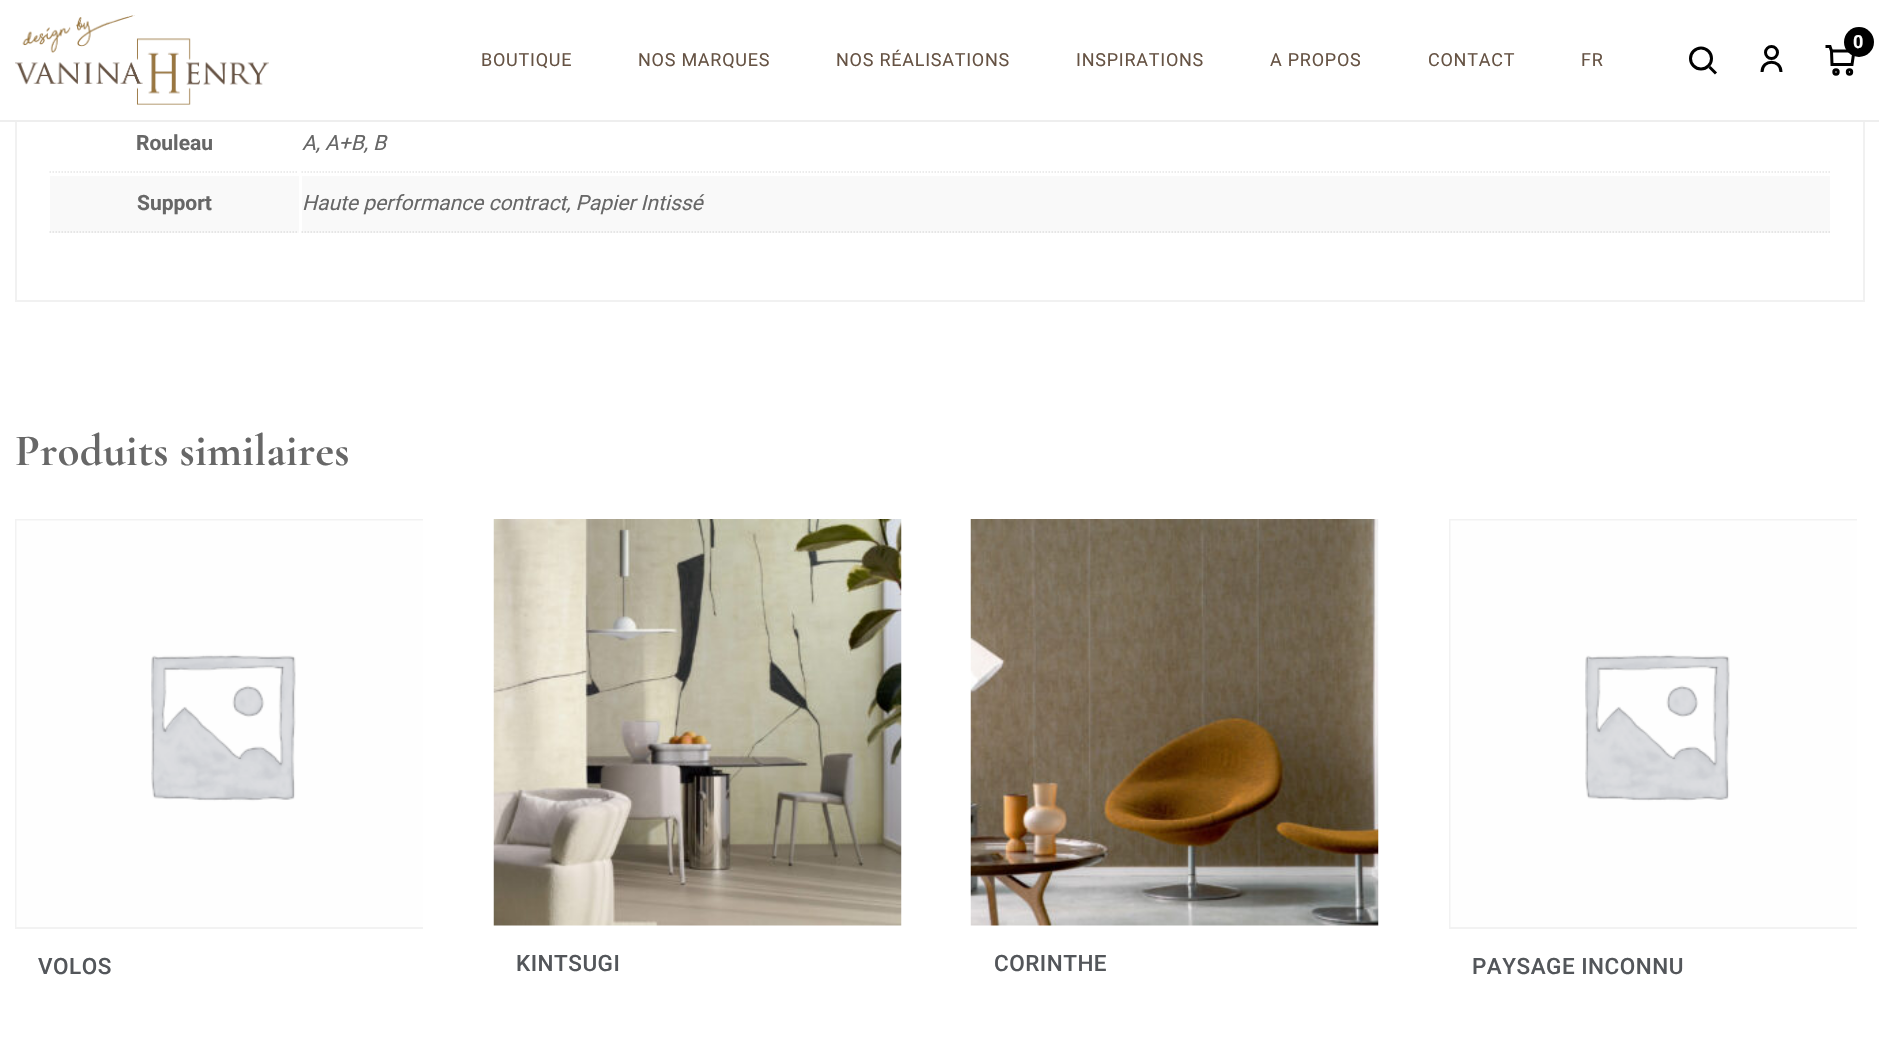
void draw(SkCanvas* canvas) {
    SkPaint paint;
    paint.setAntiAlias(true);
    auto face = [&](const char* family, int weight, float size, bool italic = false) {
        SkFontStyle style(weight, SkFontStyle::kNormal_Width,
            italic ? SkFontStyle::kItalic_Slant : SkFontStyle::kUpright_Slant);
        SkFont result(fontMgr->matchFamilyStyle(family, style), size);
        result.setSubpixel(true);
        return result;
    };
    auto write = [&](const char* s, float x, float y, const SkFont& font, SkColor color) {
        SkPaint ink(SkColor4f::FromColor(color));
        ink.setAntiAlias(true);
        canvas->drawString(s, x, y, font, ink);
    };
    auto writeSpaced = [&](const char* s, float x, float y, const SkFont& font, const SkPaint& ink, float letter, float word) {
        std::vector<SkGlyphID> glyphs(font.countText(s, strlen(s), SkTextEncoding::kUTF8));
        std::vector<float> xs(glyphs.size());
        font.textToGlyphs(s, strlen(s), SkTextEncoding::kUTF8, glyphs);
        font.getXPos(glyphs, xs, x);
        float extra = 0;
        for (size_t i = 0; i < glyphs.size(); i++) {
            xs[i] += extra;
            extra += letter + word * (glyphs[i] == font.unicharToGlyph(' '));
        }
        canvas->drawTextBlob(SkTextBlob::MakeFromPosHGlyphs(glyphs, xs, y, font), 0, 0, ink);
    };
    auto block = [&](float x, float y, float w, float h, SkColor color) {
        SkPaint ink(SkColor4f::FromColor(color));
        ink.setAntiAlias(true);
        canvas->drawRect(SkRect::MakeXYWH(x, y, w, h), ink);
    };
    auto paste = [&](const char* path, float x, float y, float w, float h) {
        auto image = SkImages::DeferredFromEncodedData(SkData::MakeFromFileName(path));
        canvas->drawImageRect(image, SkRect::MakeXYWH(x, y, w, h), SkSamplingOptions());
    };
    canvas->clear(SK_ColorWHITE);
    paint.setStyle(SkPaint::kStroke_Style);
    paint.setStrokeWidth(2);
    paint.setColor(SkColorSetRGB(241, 241, 241));
    canvas->drawRect(SkRect::MakeXYWH(16, -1, 1848, 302), paint);
    block(15, 0, 1850, 120, SK_ColorWHITE);
    block(0, 120, 1879, 2, SkColorSetRGB(238, 238, 238));
    paste("pic1.png", 15, 15, 254, 90);
    paint.setStrokeWidth(3);
    paint.setColor(SK_ColorBLACK);
    canvas->drawPath(SkPathBuilder().moveTo(1831.5f, 51).lineTo(1854, 51).lineTo(1852, 64.5f).lineTo(1832, 64.5f).close().detach(), paint);
    paint.setStyle(SkPaint::kFill_Style);
    canvas->drawCircle(1859, 42, 15, paint);
    auto kFont1 = face("Roboto", 700, 18);
    write("0", 1853, 48, kFont1, SK_ColorWHITE);
    paint.setStyle(SkPaint::kStroke_Style);
    canvas->drawCircle(1836, 72, 2.2f, paint);
    canvas->drawCircle(1849.5f, 72, 2.2f, paint);
    canvas->drawPath(SkPathBuilder().moveTo(1831.5f, 51).lineTo(1830, 46.5f).lineTo(1825.5f, 46.5f).detach(), paint);
    canvas->drawCircle(1701, 58.5f, 10.5f, paint);
    canvas->drawPath(SkPathBuilder().moveTo(1709.5f, 67).lineTo(1716, 73.5f).detach(), paint);
    canvas->drawCircle(1771.5f, 52.5f, 6, paint);
    canvas->drawPath(SkPathBuilder().moveTo(1762, 72).cubicTo(1762, 59, 1781, 59, 1781, 72).detach(), paint);
    auto kFont2 = face("Roboto", 400, 18);
    paint.setStyle(SkPaint::kFill_Style);
    paint.setColor(SkColorSetRGB(102, 83, 68));
    writeSpaced("BOUTIQUE", 481, 66, kFont2, paint, 0.75f, 0);
    writeSpaced("NOS MARQUES", 638, 66, kFont2, paint, 0.75f, 0);
    writeSpaced("NOS RÉALISATIONS", 836, 66, kFont2, paint, 0.75f, 0);
    writeSpaced("INSPIRATIONS", 1076, 66, kFont2, paint, 0.75f, 0);
    writeSpaced("A PROPOS", 1270, 66, kFont2, paint, 0.75f, 0);
    writeSpaced("CONTACT", 1428, 66, kFont2, paint, 0.75f, 0);
    writeSpaced("FR", 1581, 66, kFont2, paint, 0.75f, 0);
    paint.setStyle(SkPaint::kStroke_Style);
    paint.setStrokeWidth(1.5f);
    paint.setColor(SkColorSetRGB(230, 230, 230));
    paint.setPathEffect(SkDashPathEffect::Make({{1.5f, 1.5f}}, 0));
    canvas->drawPath(SkPathBuilder().moveTo(49.5f, 172).lineTo(298.5f, 172).detach(), paint);
    paint.setPathEffect(nullptr);
    auto kFont3 = face("Roboto", 700, 21);
    write("Rouleau", 136, 150, kFont3, SkColorSetRGB(103, 103, 103));
    paint.setPathEffect(SkDashPathEffect::Make({{1.5f, 1.5f}}, 0));
    canvas->drawPath(SkPathBuilder().moveTo(301.5f, 172).lineTo(1830, 172).detach(), paint);
    paint.setPathEffect(nullptr);
    auto kFont4 = face("Roboto", 400, 21, true);
    write("A, A+B, B", 302, 150, kFont4, SkColorSetRGB(103, 103, 103));
    block(50, 176, 249, 57, SkColorSetRGB(249, 249, 249));
    paint.setColor(SkColorSetRGB(224, 224, 224));
    paint.setPathEffect(SkDashPathEffect::Make({{1.5f, 1.5f}}, 0));
    canvas->drawPath(SkPathBuilder().moveTo(49.5f, 232).lineTo(298.5f, 232).detach(), paint);
    paint.setPathEffect(nullptr);
    write("Support", 137, 210, kFont3, SkColorSetRGB(103, 103, 103));
    block(302, 176, 1528, 57, SkColorSetRGB(249, 249, 249));
    paint.setPathEffect(SkDashPathEffect::Make({{1.5f, 1.5f}}, 0));
    canvas->drawPath(SkPathBuilder().moveTo(301.5f, 232).lineTo(1830, 232).detach(), paint);
    paint.setPathEffect(nullptr);
    write("Haute performance contract, Papier Intissé", 302, 210, kFont4, SkColorSetRGB(103, 103, 103));
    auto kFont5 = face("Cormorant Garamond", 700, 45);
    paint.setStyle(SkPaint::kFill_Style);
    paint.setColor(SkColorSetRGB(103, 103, 103));
    writeSpaced("Produits similaires", 15, 465, kFont5, paint, 0.25f, 0);
    canvas->save();
    canvas->clipRect(SkRect::MakeXYWH(15, 519, 408, 534));
    paint.setStyle(SkPaint::kStroke_Style);
    paint.setStrokeWidth(2);
    paint.setColor(SkColorSetRGB(242, 242, 242));
    canvas->drawRect(SkRect::MakeXYWH(16, 520, 409, 408), paint);
    canvas->restore();
    paste("pic2.png", 16, 520, 407, 407);
    auto kFont6 = face("Roboto", 500, 22.5f);
    paint.setStyle(SkPaint::kFill_Style);
    paint.setColor(SkColorSetRGB(83, 86, 90));
    writeSpaced("VOLOS", 38, 974, kFont6, paint, 0.5f, 0);
    paste("pic3.png", 493, 519, 409, 407);
    writeSpaced("KINTSUGI", 516, 971, kFont6, paint, 0.5f, 0);
    paste("pic4.png", 970, 519, 409, 407);
    writeSpaced("CORINTHE", 994, 971, kFont6, paint, 0.5f, 0);
    canvas->save();
    canvas->clipRect(SkRect::MakeXYWH(1449, 519, 408, 534));
    paint.setStyle(SkPaint::kStroke_Style);
    paint.setColor(SkColorSetRGB(242, 242, 242));
    canvas->drawRect(SkRect::MakeXYWH(1450, 520, 409, 408), paint);
    canvas->restore();
    paste("pic2.png", 1450, 520, 407, 407);
    paint.setStyle(SkPaint::kFill_Style);
    paint.setColor(SkColorSetRGB(83, 86, 90));
    writeSpaced("PAYSAGE INCONNU", 1472, 974, kFont6, paint, 0.5f, 0);
}
